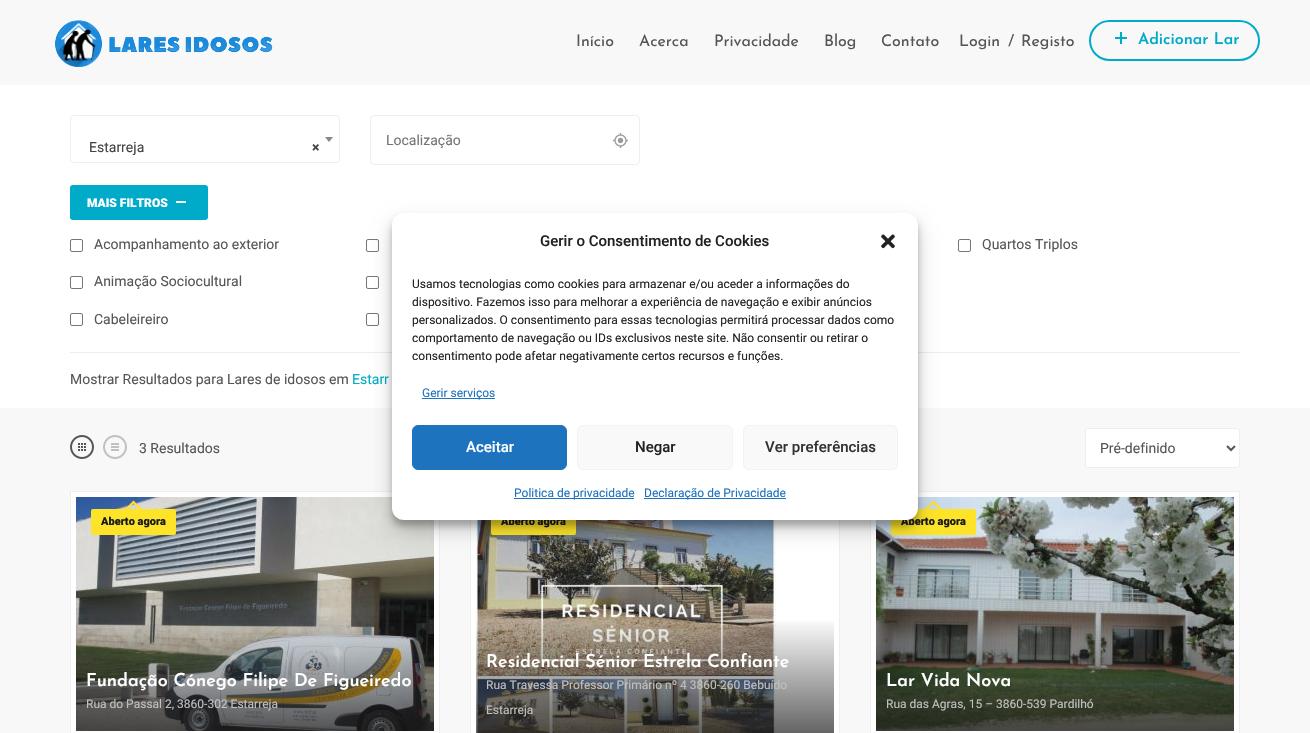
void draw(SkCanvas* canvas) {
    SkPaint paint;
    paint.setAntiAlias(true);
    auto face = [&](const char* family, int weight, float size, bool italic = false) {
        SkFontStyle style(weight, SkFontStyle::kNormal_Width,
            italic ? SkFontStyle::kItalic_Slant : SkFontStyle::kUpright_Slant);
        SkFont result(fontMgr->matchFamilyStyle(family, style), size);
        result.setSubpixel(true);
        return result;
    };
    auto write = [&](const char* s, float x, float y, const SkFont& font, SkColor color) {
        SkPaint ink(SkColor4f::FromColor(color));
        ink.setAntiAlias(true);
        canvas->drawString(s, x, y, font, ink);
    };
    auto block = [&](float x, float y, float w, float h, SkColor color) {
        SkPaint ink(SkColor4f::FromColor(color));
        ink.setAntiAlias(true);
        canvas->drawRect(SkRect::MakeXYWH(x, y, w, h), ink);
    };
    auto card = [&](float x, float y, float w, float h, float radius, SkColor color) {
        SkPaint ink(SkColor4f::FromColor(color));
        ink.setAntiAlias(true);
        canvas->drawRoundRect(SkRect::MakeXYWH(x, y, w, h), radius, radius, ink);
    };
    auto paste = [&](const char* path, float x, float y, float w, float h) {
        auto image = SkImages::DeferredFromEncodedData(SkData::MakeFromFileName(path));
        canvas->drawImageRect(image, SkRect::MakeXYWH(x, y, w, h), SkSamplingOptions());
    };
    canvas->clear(SkColorSetRGB(248, 248, 248));
    paste("pic1.png", 55, 20, 218, 47);
    auto kFont1 = face("Josefin Sans", 400, 16);
    write("Início", 576, 46, kFont1, SkColorSetRGB(86, 86, 86));
    write("Acerca", 639, 46, kFont1, SkColorSetRGB(86, 86, 86));
    write("Privacidade", 714, 46, kFont1, SkColorSetRGB(86, 86, 86));
    write("Blog", 824, 46, kFont1, SkColorSetRGB(86, 86, 86));
    write("Contato", 881, 46, kFont1, SkColorSetRGB(86, 86, 86));
    write("Login", 959, 46, kFont1, SkColorSetRGB(86, 86, 86));
    write("/", 1008, 46, kFont1, SkColorSetRGB(86, 86, 86));
    write("Registo", 1021, 46, kFont1, SkColorSetRGB(86, 86, 86));
    paint.setStyle(SkPaint::kStroke_Style);
    paint.setStrokeWidth(2);
    paint.setColor(SkColorSetRGB(0, 171, 201));
    canvas->drawRoundRect(SkRect::MakeXYWH(1090, 21, 169, 39), 19.5f, 19.5f, paint);
    paste("pic2.png", 1115, 32, 12, 12);
    auto kFont2 = face("Josefin Sans", 600, 16);
    write("Adicionar Lar", 1138, 44, kFont2, SkColorSetRGB(0, 171, 201));
    block(0, 85, 1310, 323, SK_ColorWHITE);
    paint.setStrokeWidth(1);
    paint.setColor(SkColorSetRGB(238, 238, 238));
    canvas->drawRoundRect(SkRect::MakeXYWH(70.5f, 115.5f, 269, 47), 3.5f, 3.5f, paint);
    paint.setStyle(SkPaint::kFill_Style);
    paint.setColor(SkColorSetRGB(136, 136, 136));
    canvas->drawPath(SkPathBuilder().moveTo(325, 137).lineTo(333, 137).lineTo(329, 142).close().detach(), paint);
    auto kFont3 = face("Roboto", 400, 14);
    write("Estarreja", 89, 152, kFont3, SkColorSetRGB(68, 68, 68));
    auto kFont4 = face("Roboto", 700, 14);
    write("×", 312, 152, kFont4, SkColorSetRGB(68, 68, 68));
    paint.setStyle(SkPaint::kStroke_Style);
    paint.setColor(SkColorSetRGB(238, 238, 238));
    canvas->drawRoundRect(SkRect::MakeXYWH(370.5f, 115.5f, 269, 49), 3.5f, 3.5f, paint);
    write("Localização", 386, 145, kFont3, SkColorSetRGB(117, 117, 117));
    paste("pic3.png", 613, 133, 15, 15);
    paint.setStyle(SkPaint::kFill_Style);
    paint.setColor(SkColorSetRGB(0, 171, 201));
    canvas->drawRoundRect(SkRect::MakeXYWH(71, 186, 136, 33), 2, 2, paint);
    paint.setStyle(SkPaint::kStroke_Style);
    paint.setStrokeWidth(2);
    canvas->drawRoundRect(SkRect::MakeXYWH(71, 186, 136, 33), 2, 2, paint);
    auto kFont5 = face("Roboto", 900, 12);
    write("MAIS FILTROS", 87, 207, kFont5, SK_ColorWHITE);
    block(176, 201, 10, 2, SK_ColorWHITE);
    paint.setStrokeWidth(1);
    paint.setColor(SkColorSetRGB(118, 118, 118));
    canvas->drawRoundRect(SkRect::MakeXYWH(70.5f, 239.5f, 12, 12), 1.5f, 1.5f, paint);
    write("Acompanhamento ao exterior", 94, 249, kFont3, SkColorSetRGB(86, 86, 86));
    canvas->drawRoundRect(SkRect::MakeXYWH(366.5f, 239.5f, 12, 12), 1.5f, 1.5f, paint);
    canvas->drawRoundRect(SkRect::MakeXYWH(958.5f, 239.5f, 12, 12), 1.5f, 1.5f, paint);
    write("Quartos Triplos", 982, 249, kFont3, SkColorSetRGB(86, 86, 86));
    canvas->drawRoundRect(SkRect::MakeXYWH(70.5f, 276.5f, 12, 12), 1.5f, 1.5f, paint);
    write("Animação Sociocultural", 94, 286, kFont3, SkColorSetRGB(86, 86, 86));
    canvas->drawRoundRect(SkRect::MakeXYWH(366.5f, 276.5f, 12, 12), 1.5f, 1.5f, paint);
    canvas->drawRoundRect(SkRect::MakeXYWH(70.5f, 313.5f, 12, 12), 1.5f, 1.5f, paint);
    write("Cabeleireiro", 94, 324, kFont3, SkColorSetRGB(86, 86, 86));
    canvas->drawRoundRect(SkRect::MakeXYWH(366.5f, 313.5f, 12, 12), 1.5f, 1.5f, paint);
    block(70, 352, 1170, 1, SkColorSetRGB(238, 238, 238));
    write("Mostrar Resultados para Lares de idosos em", 70, 384, kFont3, SkColorSetRGB(86, 86, 86));
    write("Estarr", 352, 384, kFont3, SkColorSetRGB(0, 171, 201));
    paste("pic4.png", 70, 435, 24, 24);
    paste("pic5.png", 103, 435, 24, 24);
    write("3 Resultados", 139, 453, kFont3, SkColorSetRGB(86, 86, 86));
    paint.setStyle(SkPaint::kFill_Style);
    paint.setColor(SK_ColorWHITE);
    canvas->drawRoundRect(SkRect::MakeXYWH(1085.5f, 428.5f, 154, 39), 2.5f, 2.5f, paint);
    paint.setStyle(SkPaint::kStroke_Style);
    paint.setColor(SkColorSetRGB(238, 238, 238));
    canvas->drawRoundRect(SkRect::MakeXYWH(1085.5f, 428.5f, 154, 39), 2.5f, 2.5f, paint);
    paint.setStrokeWidth(2);
    paint.setColor(SkColorSetRGB(86, 86, 86));
    canvas->drawPath(SkPathBuilder().moveTo(1227, 446).lineTo(1231, 450).lineTo(1235, 446).detach(), paint);
    write("Pré-definido", 1100, 453, kFont3, SkColorSetRGB(86, 86, 86));
    paint.setStyle(SkPaint::kFill_Style);
    paint.setColor(SK_ColorWHITE);
    canvas->drawRect(SkRect::MakeXYWH(70.5f, 491.5f, 369, 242), paint);
    paint.setStyle(SkPaint::kStroke_Style);
    paint.setStrokeWidth(1);
    paint.setColor(SkColorSetRGB(238, 238, 238));
    canvas->drawRect(SkRect::MakeXYWH(70.5f, 491.5f, 369, 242), paint);
    paste("pic6.png", 76, 497, 358, 234);
    card(91, 509, 85, 26, 2, SkColorSetRGB(253, 228, 40));
    auto kFont6 = face("Roboto", 900, 11);
    write("Aberto agora", 101, 525, kFont6, SkColorSetRGB(27, 27, 27));
    paint.setStrokeWidth(2);
    paint.setColor(SkColorSetRGB(253, 228, 40));
    canvas->drawPath(SkPathBuilder().moveTo(133.5f, 502).lineTo(140.5f, 509).lineTo(133.5f, 516).lineTo(126.5f, 509).close().detach(), paint);
    auto kFont7 = face("Josefin Sans", 600, 18);
    write("Fundação Cónego Filipe De Figueiredo", 86, 686, kFont7, SK_ColorWHITE);
    auto kFont8 = face("Roboto", 400, 12);
    write("Rua do Passal 2, 3860-302 Estarreja", 86, 708, kFont8, SkColorSetRGB(192, 192, 192));
    block(471, 520, 368, 213, SK_ColorWHITE);
    paint.setStrokeWidth(1);
    paint.setColor(SkColorSetRGB(238, 238, 238));
    canvas->drawRect(SkRect::MakeXYWH(470.5f, 491.5f, 369, 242), paint);
    paste("pic7.png", 476, 520, 300, 213);
    card(491, 509, 85, 26, 2, SkColorSetRGB(253, 228, 40));
    write("Aberto agora", 501, 525, kFont6, SkColorSetRGB(27, 27, 27));
    paint.setStyle(SkPaint::kFill_Style);
    {
        const SkColor colors[] = {SkColorSetARGB(0, 27, 27, 27), SkColorSetARGB(179, 27, 27, 27)};
        const float stops[] = {0, 1};
        const SkPoint ends[] = {{655, 617}, {655, 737}};
        paint.setShader(SkGradientShader::MakeLinear(ends, colors, stops, 2, SkTileMode::kClamp));
        paint.setAlpha(255);
    }
    canvas->drawRect(SkRect::MakeXYWH(476, 621, 358, 112), paint);
    write("Residencial Sénior Estrela Confiante", 486, 667, kFont7, SK_ColorWHITE);
    write("Rua Travessa Professor Primário nº 4 3860-260 Bebuído", 486, 689, kFont8, SkColorSetRGB(192, 192, 192));
    write("Estarreja", 486, 714, kFont8, SkColorSetRGB(192, 192, 192));
    paint.setShader(nullptr);
    paint.setColor(SK_ColorWHITE);
    canvas->drawRect(SkRect::MakeXYWH(870.5f, 491.5f, 369, 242), paint);
    paint.setStyle(SkPaint::kStroke_Style);
    paint.setColor(SkColorSetRGB(238, 238, 238));
    canvas->drawRect(SkRect::MakeXYWH(870.5f, 491.5f, 369, 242), paint);
    paste("pic8.png", 876, 497, 358, 234);
    card(891, 509, 85, 26, 2, SkColorSetRGB(253, 228, 40));
    write("Aberto agora", 901, 525, kFont6, SkColorSetRGB(27, 27, 27));
    paint.setStrokeWidth(2);
    paint.setColor(SkColorSetRGB(253, 228, 40));
    canvas->drawPath(SkPathBuilder().moveTo(933.5f, 502).lineTo(940.5f, 509).lineTo(933.5f, 516).lineTo(926.5f, 509).close().detach(), paint);
    write("Lar Vida Nova", 886, 686, kFont7, SK_ColorWHITE);
    write("Rua das Agras, 15 – 3860-539 Pardilhó", 886, 708, kFont8, SkColorSetRGB(192, 192, 192));
    paint.setStyle(SkPaint::kFill_Style);
    paint.setColor(SkColorSetARGB(59, 0, 0, 0));
    paint.setMaskFilter(SkMaskFilter::MakeBlur(kNormal_SkBlurStyle, 3));
    canvas->drawRoundRect(SkRect::MakeXYWH(392, 219, 526, 307), 12, 12, paint);
    paint.setMaskFilter(nullptr);
    paint.setColor(SkColorSetARGB(48, 0, 0, 0));
    paint.setMaskFilter(SkMaskFilter::MakeBlur(kNormal_SkBlurStyle, 10));
    canvas->drawRoundRect(SkRect::MakeXYWH(392, 223, 526, 307), 12, 12, paint);
    paint.setMaskFilter(nullptr);
    card(392, 213, 526, 307, 12, SK_ColorWHITE);
    auto kFont9 = face("Roboto", 500, 15);
    write("Gerir o Consentimento de Cookies", 540, 246, kFont9, SkColorSetRGB(34, 34, 34));
    paste("pic9.png", 881, 234, 14, 15);
    write("Usamos tecnologias como cookies para armazenar e/ou aceder a informações do", 412, 288, kFont8, SkColorSetRGB(34, 34, 34));
    write("dispositivo. Fazemos isso para melhorar a experiência de navegação e exibir anúncios", 412, 306, kFont8, SkColorSetRGB(34, 34, 34));
    write("personalizados. O consentimento para essas tecnologias permitirá processar dados como", 412, 324, kFont8, SkColorSetRGB(34, 34, 34));
    write("comportamento de navegação ou IDs exclusivos neste site. Não consentir ou retirar o", 412, 342, kFont8, SkColorSetRGB(34, 34, 34));
    write("consentimento pode afetar negativamente certos recursos e funções.", 412, 360, kFont8, SkColorSetRGB(34, 34, 34));
    block(422, 398, 73, 1, SkColorSetRGB(30, 115, 190));
    write("Gerir serviços", 422, 397, kFont8, SkColorSetRGB(30, 115, 190));
    paint.setColor(SkColorSetRGB(30, 115, 190));
    canvas->drawRoundRect(SkRect::MakeXYWH(412.5f, 425.5f, 154, 44), 5.5f, 5.5f, paint);
    paint.setStyle(SkPaint::kStroke_Style);
    paint.setStrokeWidth(1);
    canvas->drawRoundRect(SkRect::MakeXYWH(412.5f, 425.5f, 154, 44), 5.5f, 5.5f, paint);
    write("Aceitar", 466, 452, kFont9, SK_ColorWHITE);
    paint.setStyle(SkPaint::kFill_Style);
    paint.setColor(SkColorSetRGB(249, 249, 249));
    canvas->drawRoundRect(SkRect::MakeXYWH(577.5f, 425.5f, 155, 44), 5.5f, 5.5f, paint);
    paint.setStyle(SkPaint::kStroke_Style);
    paint.setColor(SkColorSetRGB(242, 242, 242));
    canvas->drawRoundRect(SkRect::MakeXYWH(577.5f, 425.5f, 155, 44), 5.5f, 5.5f, paint);
    write("Negar", 635, 452, kFont9, SkColorSetRGB(34, 34, 34));
    paint.setStyle(SkPaint::kFill_Style);
    paint.setColor(SkColorSetRGB(249, 249, 249));
    canvas->drawRoundRect(SkRect::MakeXYWH(743.5f, 425.5f, 154, 44), 5.5f, 5.5f, paint);
    paint.setStyle(SkPaint::kStroke_Style);
    paint.setColor(SkColorSetRGB(242, 242, 242));
    canvas->drawRoundRect(SkRect::MakeXYWH(743.5f, 425.5f, 154, 44), 5.5f, 5.5f, paint);
    write("Ver preferências", 765, 452, kFont9, SkColorSetRGB(51, 51, 51));
    block(514, 498, 120, 1, SkColorSetRGB(30, 115, 190));
    write("Politica de privacidade", 514, 497, kFont8, SkColorSetRGB(30, 115, 190));
    block(644, 498, 142, 1, SkColorSetRGB(30, 115, 190));
    write("Declaração de Privacidade", 644, 497, kFont8, SkColorSetRGB(30, 115, 190));
}
